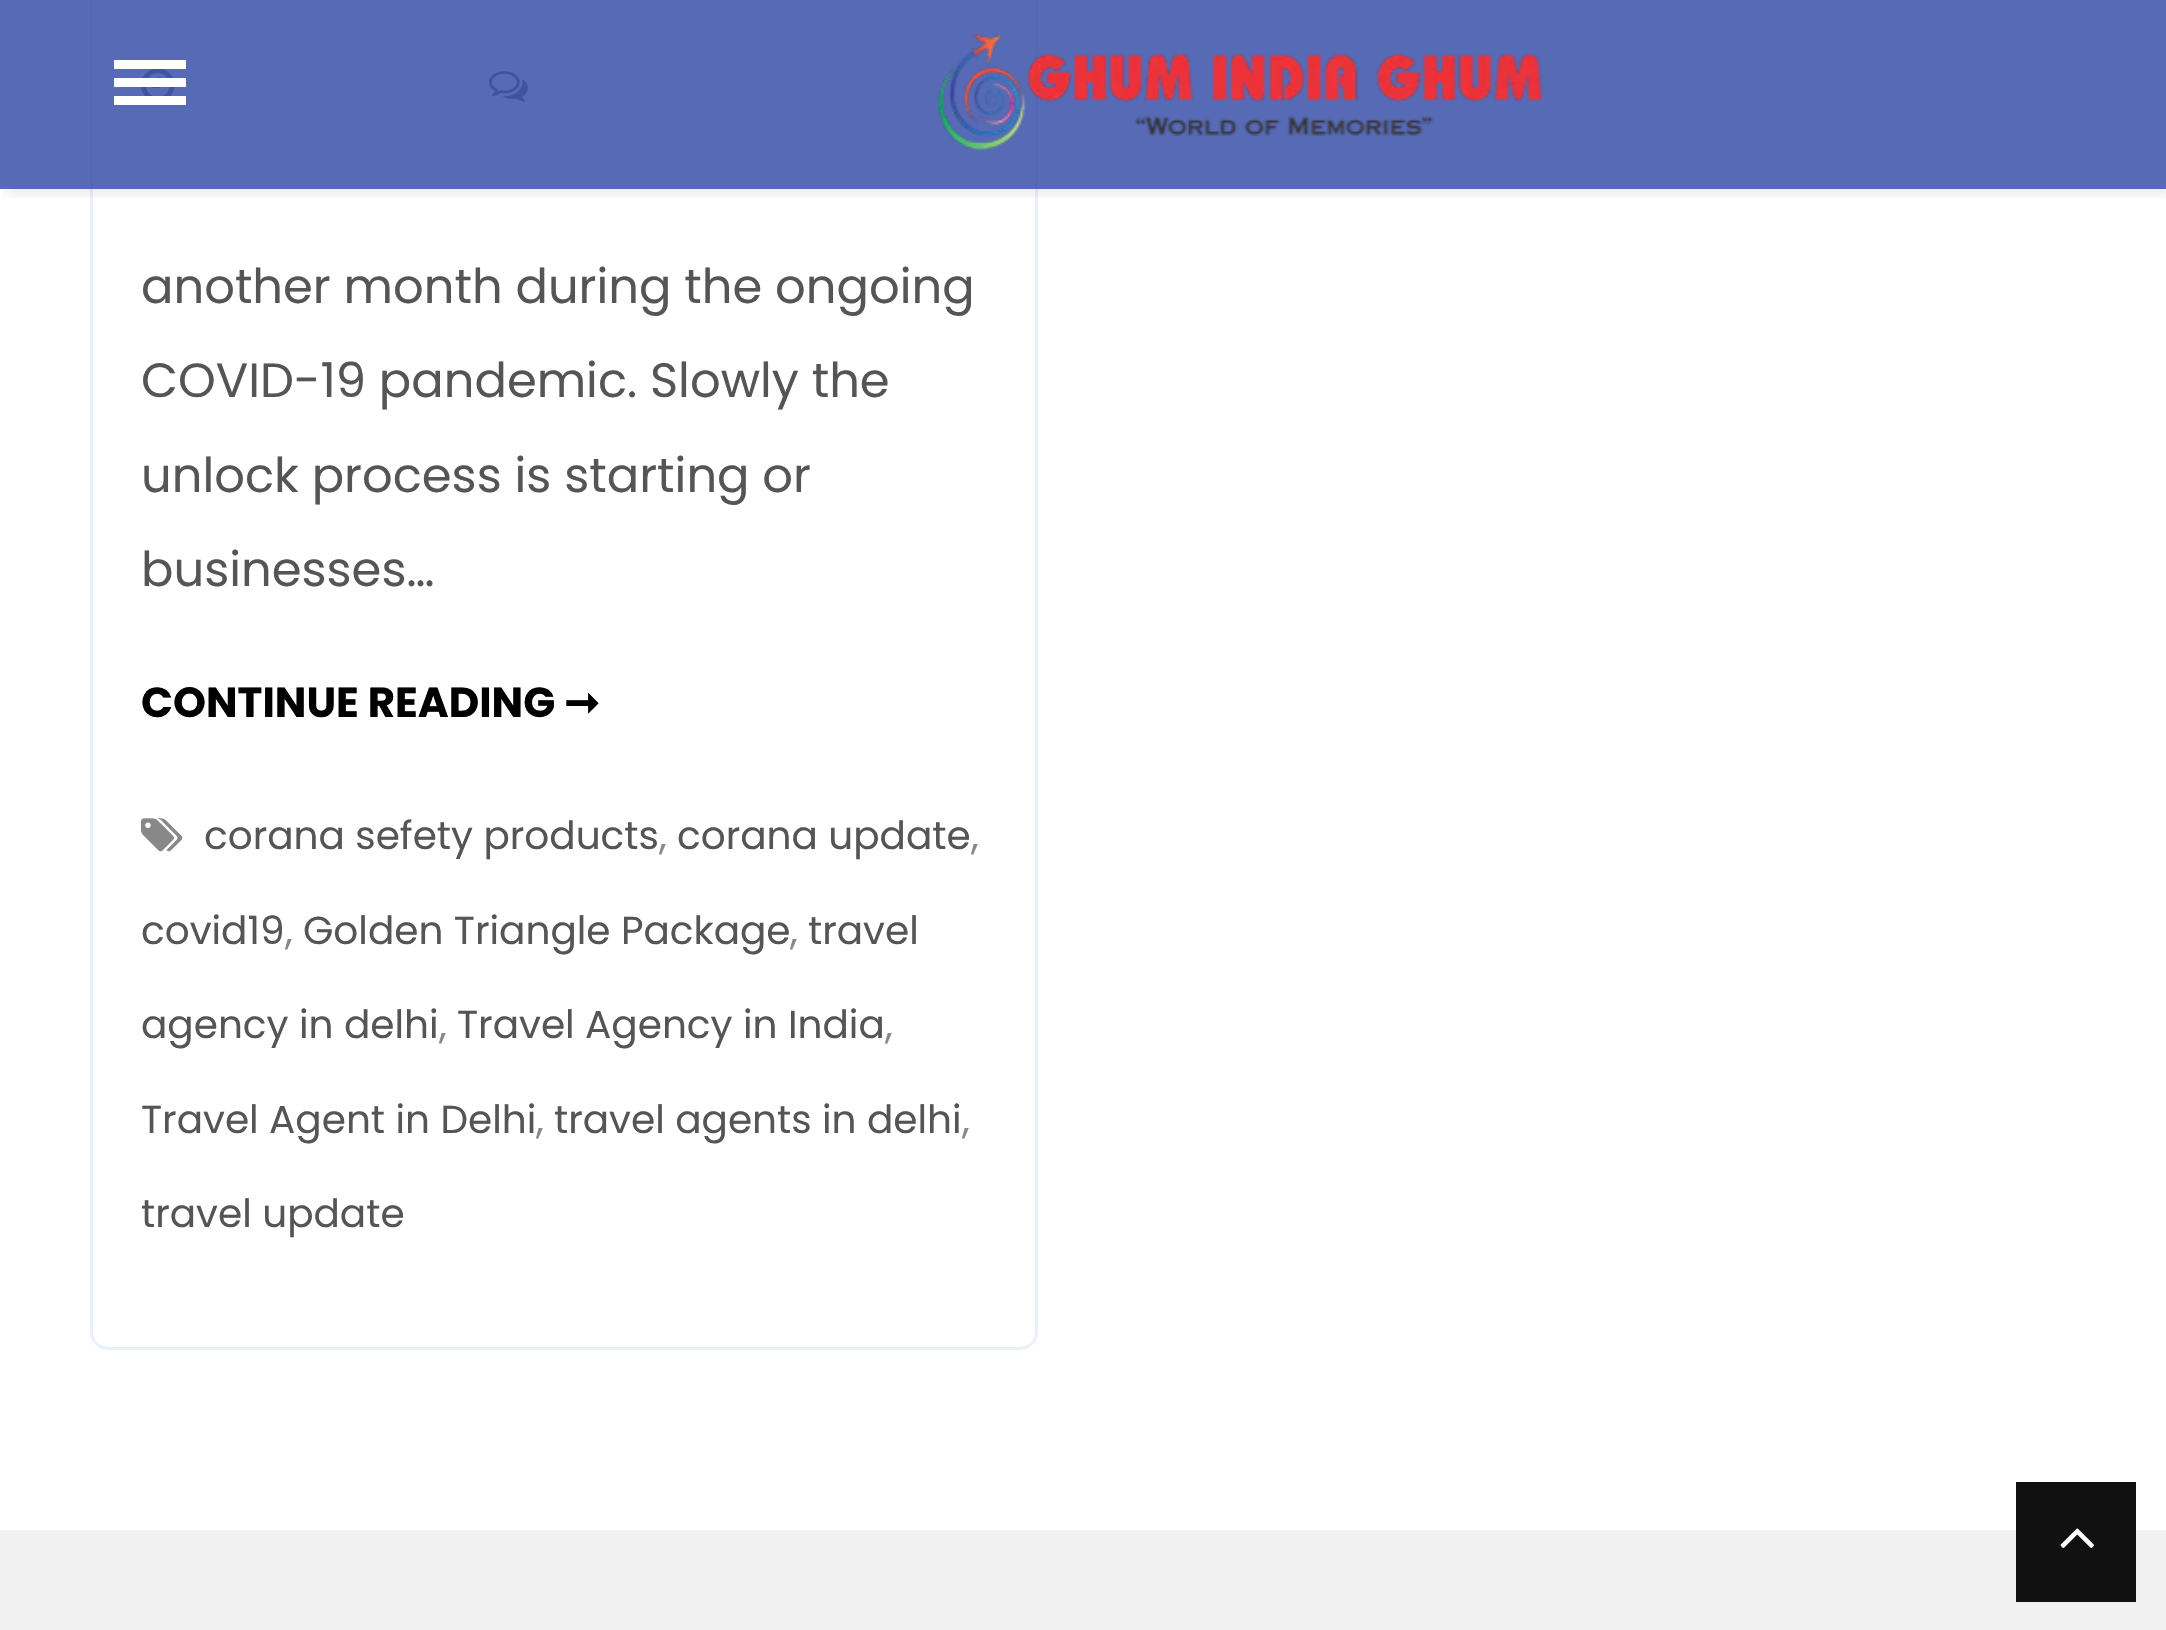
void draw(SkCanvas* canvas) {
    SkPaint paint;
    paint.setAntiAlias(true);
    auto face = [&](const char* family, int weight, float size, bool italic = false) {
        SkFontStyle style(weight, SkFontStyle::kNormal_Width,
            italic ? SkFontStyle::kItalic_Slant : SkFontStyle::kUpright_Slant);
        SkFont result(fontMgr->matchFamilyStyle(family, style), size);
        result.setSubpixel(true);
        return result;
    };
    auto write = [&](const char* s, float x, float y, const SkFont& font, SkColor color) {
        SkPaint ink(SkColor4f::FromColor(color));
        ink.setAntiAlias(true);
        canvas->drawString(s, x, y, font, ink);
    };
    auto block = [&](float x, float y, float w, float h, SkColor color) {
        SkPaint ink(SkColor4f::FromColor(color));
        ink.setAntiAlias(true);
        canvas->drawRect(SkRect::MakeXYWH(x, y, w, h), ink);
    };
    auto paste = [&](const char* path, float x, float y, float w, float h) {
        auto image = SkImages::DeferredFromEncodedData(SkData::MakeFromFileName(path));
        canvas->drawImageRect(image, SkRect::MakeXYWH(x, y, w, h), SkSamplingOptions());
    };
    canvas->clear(SkColorSetRGB(241, 241, 241));
    block(0, 0, 2166, 1530, SK_ColorWHITE);
    paint.setStyle(SkPaint::kStroke_Style);
    paint.setStrokeWidth(3);
    paint.setColor(SkColorSetRGB(235, 241, 248));
    canvas->drawRoundRect(SkRect::MakeXYWH(91.5f, -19.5f, 945, 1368), 16.5f, 16.5f, paint);
    paste("pic2.png", 141, 69, 34, 27);
    paste("pic3.png", 489, 71, 39, 31);
    canvas->save();
    canvas->clipRect(SkRect::MakeXYWH(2, 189, 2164, 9));
    paint.setStyle(SkPaint::kFill_Style);
    paint.setColor(SkColorSetARGB(26, 0, 0, 0));
    paint.setMaskFilter(SkMaskFilter::MakeBlur(kNormal_SkBlurStyle, 7.5f));
    canvas->drawRect(SkRect::MakeXYWH(6, 3, 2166, 189), paint);
    paint.setMaskFilter(nullptr);
    canvas->restore();
    block(0, 0, 2166, 189, SkColorSetARGB(204, 44, 69, 163));
    block(114, 60, 72, 9, SK_ColorWHITE);
    block(114, 78, 72, 9, SK_ColorWHITE);
    block(114, 96, 72, 9, SK_ColorWHITE);
    paste("pic1.png", 937, 33, 605, 117);
    auto kFont1 = face("Poppins", 400, 48);
    write("another month during the ongoing", 141, 303, kFont1, SkColorSetRGB(85, 85, 85));
    write("COVID-19 pandemic. Slowly the", 141, 397, kFont1, SkColorSetRGB(85, 85, 85));
    write("unlock process is starting or", 141, 492, kFont1, SkColorSetRGB(85, 85, 85));
    write("businesses…", 141, 586, kFont1, SkColorSetRGB(85, 85, 85));
    auto kFont2 = face("Poppins", 700, 42);
    write("CONTINUE READING", 141, 717, kFont2, SK_ColorBLACK);
    auto kFont3 = face("DejaVu Sans", 700, 42);
    write("➞", 564, 717, kFont3, SK_ColorBLACK);
    paste("pic4.png", 141, 818, 42, 34);
    auto kFont4 = face("Poppins", 400, 39);
    write("corana sefety products", 204, 849, kFont4, SkColorSetRGB(85, 85, 85));
    write(",", 659, 849, kFont4, SkColorSetRGB(136, 136, 136));
    write("corana update", 677, 849, kFont4, SkColorSetRGB(85, 85, 85));
    write(",", 971, 849, kFont4, SkColorSetRGB(136, 136, 136));
    write("covid19", 141, 944, kFont4, SkColorSetRGB(85, 85, 85));
    write(",", 285, 944, kFont4, SkColorSetRGB(136, 136, 136));
    write("Golden Triangle Package", 303, 944, kFont4, SkColorSetRGB(85, 85, 85));
    write(",", 790, 944, kFont4, SkColorSetRGB(136, 136, 136));
    write("travel", 808, 944, kFont4, SkColorSetRGB(85, 85, 85));
    write("agency in delhi", 141, 1038, kFont4, SkColorSetRGB(85, 85, 85));
    write(",", 439, 1038, kFont4, SkColorSetRGB(136, 136, 136));
    write("Travel Agency in India", 457, 1038, kFont4, SkColorSetRGB(85, 85, 85));
    write(",", 885, 1038, kFont4, SkColorSetRGB(136, 136, 136));
    write("Travel Agent in Delhi", 141, 1133, kFont4, SkColorSetRGB(85, 85, 85));
    write(",", 536, 1133, kFont4, SkColorSetRGB(136, 136, 136));
    write("travel agents in delhi", 554, 1133, kFont4, SkColorSetRGB(85, 85, 85));
    write(",", 962, 1133, kFont4, SkColorSetRGB(136, 136, 136));
    write("travel update", 141, 1227, kFont4, SkColorSetRGB(85, 85, 85));
    block(2016, 1482, 120, 120, SkColorSetRGB(17, 17, 17));
    paste("pic5.png", 2060, 1528, 34, 20);
}
